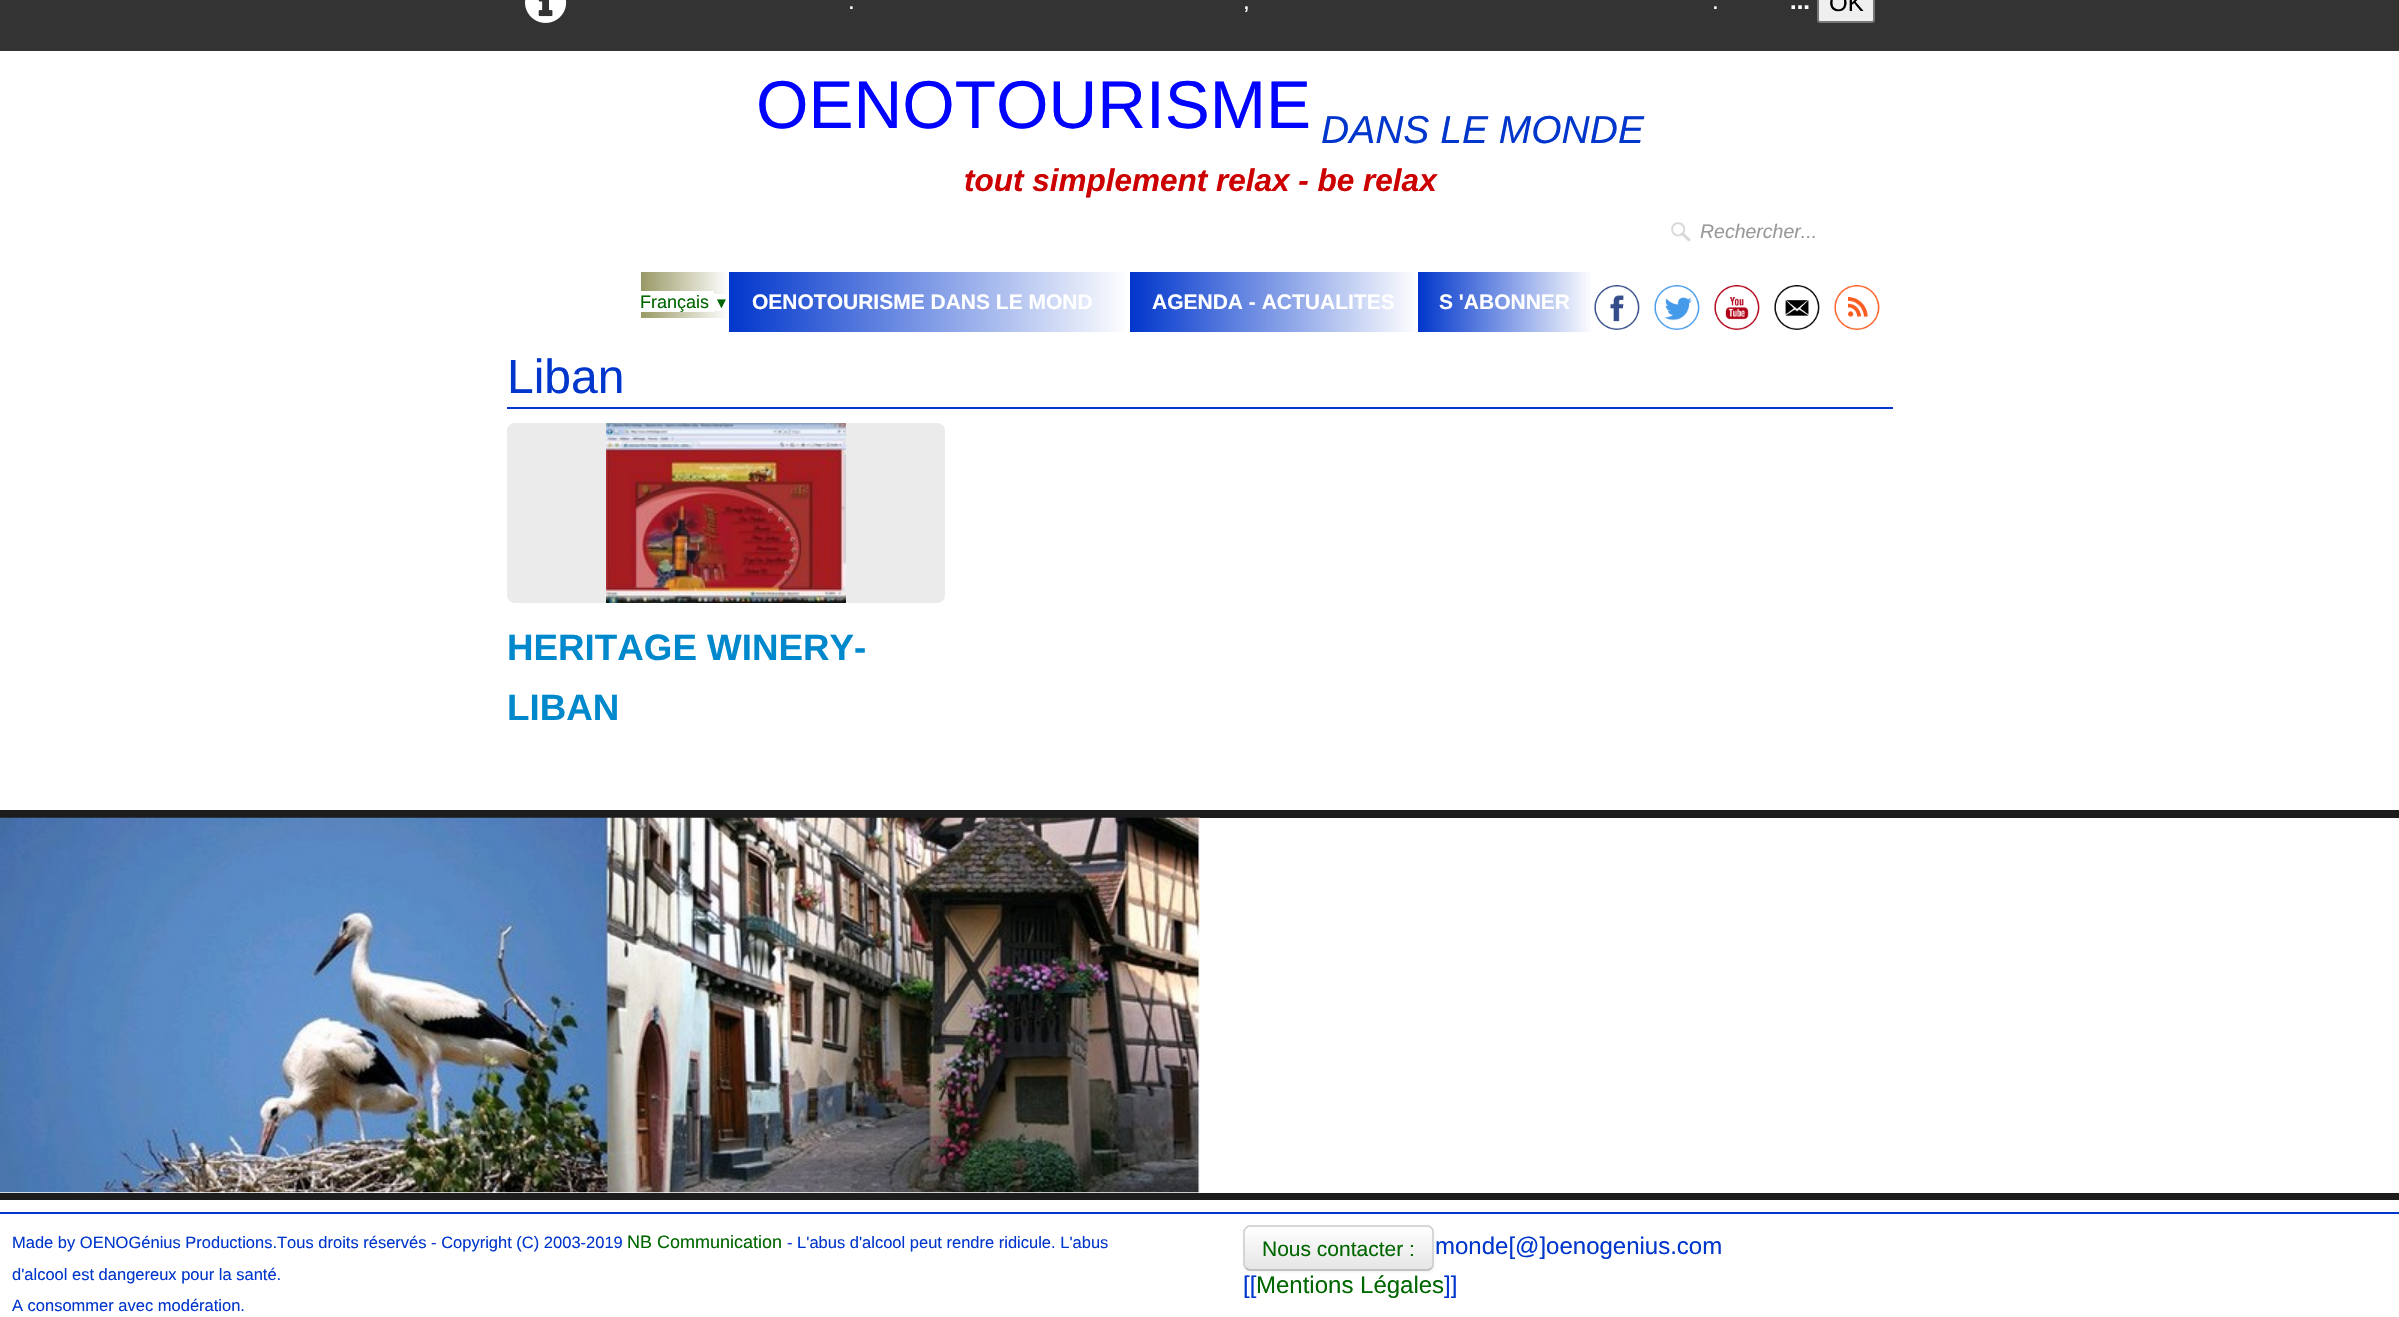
void draw(SkCanvas* canvas) {
    SkPaint paint;
    paint.setAntiAlias(true);
    auto face = [&](const char* family, int weight, float size, bool italic = false) {
        SkFontStyle style(weight, SkFontStyle::kNormal_Width,
            italic ? SkFontStyle::kItalic_Slant : SkFontStyle::kUpright_Slant);
        SkFont result(fontMgr->matchFamilyStyle(family, style), size);
        result.setSubpixel(true);
        return result;
    };
    auto write = [&](const char* s, float x, float y, const SkFont& font, SkColor color) {
        SkPaint ink(SkColor4f::FromColor(color));
        ink.setAntiAlias(true);
        canvas->drawString(s, x, y, font, ink);
    };
    auto block = [&](float x, float y, float w, float h, SkColor color) {
        SkPaint ink(SkColor4f::FromColor(color));
        ink.setAntiAlias(true);
        canvas->drawRect(SkRect::MakeXYWH(x, y, w, h), ink);
    };
    auto card = [&](float x, float y, float w, float h, float radius, SkColor color) {
        SkPaint ink(SkColor4f::FromColor(color));
        ink.setAntiAlias(true);
        canvas->drawRoundRect(SkRect::MakeXYWH(x, y, w, h), radius, radius, ink);
    };
    auto paste = [&](const char* path, float x, float y, float w, float h) {
        auto image = SkImages::DeferredFromEncodedData(SkData::MakeFromFileName(path));
        canvas->drawImageRect(image, SkRect::MakeXYWH(x, y, w, h), SkSamplingOptions());
    };
    canvas->clear(SK_ColorWHITE);
    block(0, 0, 2399, 51, SkColorSetRGB(51, 51, 51));
    paste("pic1.png", 525, 0, 42, 23);
    auto kFont1 = face("Liberation Sans", 400, 24);
    write(".", 848, 9, kFont1, SK_ColorWHITE);
    write(",", 1243, 9, kFont1, SK_ColorWHITE);
    write(".", 1712, 9, kFont1, SK_ColorWHITE);
    auto kFont2 = face("Liberation Sans", 700, 24);
    write("...", 1790, 9, kFont2, SK_ColorWHITE);
    paint.setColor(SkColorSetRGB(239, 239, 239));
    canvas->drawRoundRect(SkRect::MakeXYWH(1818, -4, 56, 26), 2, 2, paint);
    paint.setStyle(SkPaint::kStroke_Style);
    paint.setStrokeWidth(2);
    paint.setColor(SkColorSetRGB(118, 118, 118));
    canvas->drawRoundRect(SkRect::MakeXYWH(1818, -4, 56, 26), 2, 2, paint);
    write("OK", 1829, 11, kFont1, SK_ColorBLACK);
    auto kFont3 = face("Liberation Sans", 400, 67.5f);
    write("OENOTOURISME", 756, 128, kFont3, SkColorSetRGB(0, 4, 255));
    auto kFont4 = face("Liberation Sans", 400, 39, true);
    write("DANS LE MONDE", 1321, 143, kFont4, SkColorSetRGB(0, 54, 204));
    auto kFont5 = face("Liberation Sans", 700, 31.5f, true);
    write("tout simplement relax - be relax", 964, 191, kFont5, SkColorSetRGB(204, 0, 0));
    paste("pic2.png", 1671, 222, 20, 20);
    auto kFont6 = face("Liberation Sans", 400, 19.5f, true);
    write("Rechercher...", 1700, 238, kFont6, SkColorSetRGB(153, 153, 153));
    paint.setStyle(SkPaint::kFill_Style);
    {
        const SkColor colors[] = {SkColorSetRGB(153, 153, 102), SK_ColorWHITE};
        const float stops[] = {0, 1};
        const SkPoint ends[] = {{641, 295}, {729, 295}};
        paint.setShader(SkGradientShader::MakeLinear(ends, colors, stops, 2, SkTileMode::kClamp));
        paint.setAlpha(255);
    }
    canvas->drawRect(SkRect::MakeXYWH(641, 272, 87, 46), paint);
    block(641, 291, 73, 21, SK_ColorWHITE);
    auto kFont7 = face("Liberation Sans", 400, 18);
    write("Français", 640, 308, kFont7, SkColorSetRGB(0, 102, 0));
    block(714, 294, 14, 17, SK_ColorWHITE);
    auto kFont8 = face("Liberation Sans", 400, 15);
    write("▼", 714, 308, kFont8, SkColorSetRGB(0, 102, 0));
    {
        const SkColor colors[] = {SkColorSetRGB(0, 54, 204), SK_ColorWHITE};
        const float stops[] = {0, 1};
        const SkPoint ends[] = {{729, 302}, {1130, 302}};
        paint.setShader(SkGradientShader::MakeLinear(ends, colors, stops, 2, SkTileMode::kClamp));
        paint.setAlpha(255);
    }
    canvas->drawRect(SkRect::MakeXYWH(729, 272, 397, 60), paint);
    auto kFont9 = face("Liberation Sans", 700, 21);
    write("OENOTOURISME DANS LE MOND", 752, 309, kFont9, SK_ColorWHITE);
    {
        const SkColor colors[] = {SkColorSetRGB(0, 54, 204), SK_ColorWHITE};
        const float stops[] = {0, 1};
        const SkPoint ends[] = {{1130, 302}, {1418, 302}};
        paint.setShader(SkGradientShader::MakeLinear(ends, colors, stops, 2, SkTileMode::kClamp));
        paint.setAlpha(255);
    }
    canvas->drawRect(SkRect::MakeXYWH(1130, 272, 285, 60), paint);
    write("AGENDA - ACTUALITES", 1152, 309, kFont9, SK_ColorWHITE);
    {
        const SkColor colors[] = {SkColorSetRGB(0, 54, 204), SK_ColorWHITE};
        const float stops[] = {0, 1};
        const SkPoint ends[] = {{1418, 302}, {1593, 302}};
        paint.setShader(SkGradientShader::MakeLinear(ends, colors, stops, 2, SkTileMode::kClamp));
        paint.setAlpha(255);
    }
    canvas->drawRect(SkRect::MakeXYWH(1418, 272, 173, 60), paint);
    write("S 'ABONNER", 1439, 309, kFont9, SK_ColorWHITE);
    paste("pic3.png", 1594, 285, 46, 45);
    paste("pic4.png", 1654, 285, 46, 45);
    paste("pic5.png", 1714, 285, 46, 45);
    paste("pic6.png", 1774, 285, 46, 45);
    paste("pic7.png", 1834, 285, 46, 45);
    block(507, 407, 1386, 2, SkColorSetRGB(0, 54, 204));
    auto kFont10 = face("Liberation Sans", 400, 48);
    write("Liban", 507, 393, kFont10, SkColorSetRGB(0, 54, 204));
    card(507, 423, 438, 180, 8, SkColorSetRGB(235, 235, 235));
    paste("pic8.png", 606, 423, 240, 180);
    auto kFont11 = face("Liberation Sans", 700, 36.75f);
    write("HERITAGE WINERY-", 507, 660, kFont11, SkColorSetRGB(0, 136, 204));
    write("LIBAN", 507, 720, kFont11, SkColorSetRGB(0, 136, 204));
    block(0, 810, 2399, 8, SkColorSetRGB(28, 28, 28));
    block(0, 1193, 2399, 7, SkColorSetRGB(28, 28, 28));
    paste("pic9.png", 0, 817, 1200, 376);
    block(0, 1212, 2399, 2, SkColorSetRGB(0, 54, 204));
    auto kFont12 = face("Liberation Sans", 400, 16.5f);
    write("Made by OENOGénius Productions.Tous droits réservés - Copyright (C) 2003-2019", 12, 1248, kFont12, SkColorSetRGB(0, 54, 204));
    write("NB Communication", 627, 1248, kFont7, SkColorSetRGB(0, 102, 0));
    write("- L'abus d'alcool peut rendre ridicule. L'abus", 787, 1248, kFont12, SkColorSetRGB(0, 54, 204));
    write("d'alcool est dangereux pour la santé.", 12, 1280, kFont12, SkColorSetRGB(0, 54, 204));
    write("A consommer avec modération.", 12, 1311, kFont12, SkColorSetRGB(0, 54, 204));
    paint.setShader(nullptr);
    paint.setColor(SkColorSetARGB(13, 0, 0, 0));
    paint.setMaskFilter(SkMaskFilter::MakeBlur(kNormal_SkBlurStyle, 1.5f));
    canvas->drawRoundRect(SkRect::MakeXYWH(1244, 1227, 190, 45), 6, 6, paint);
    paint.setMaskFilter(nullptr);
    card(1244, 1226, 190, 45, 6, SkColorSetRGB(245, 245, 245));
    canvas->save();
    canvas->clipPath(SkPathBuilder().moveTo(1250, 1226).lineTo(1428, 1226).cubicTo(1431.5f, 1226, 1434, 1228.5f, 1434, 1232).lineTo(1434, 1265).cubicTo(1434, 1268.5f, 1431.5f, 1271, 1428, 1271).lineTo(1250, 1271).cubicTo(1246.5f, 1271, 1244, 1268.5f, 1244, 1265).lineTo(1244, 1232).cubicTo(1244, 1228.5f, 1246.5f, 1226, 1250, 1226).close().detach(), true);
    {
        const SkColor colors[] = {SK_ColorWHITE, SkColorSetRGB(230, 230, 230)};
        const float stops[] = {0, 1};
        const SkPoint ends[] = {{1339, 1227}, {1339, 1269}};
        paint.setShader(SkGradientShader::MakeLinear(ends, colors, stops, 2, SkTileMode::kClamp));
        paint.setAlpha(255);
    }
    canvas->drawRect(SkRect::MakeXYWH(1244, 1227, 190, 42), paint);
    canvas->restore();
    paint.setShader(nullptr);
    paint.setColor(SkColorSetARGB(51, 255, 255, 255));
    canvas->drawPath(SkPathBuilder().moveTo(1250, 1228).lineTo(1428, 1228).cubicTo(1434, 1228, 1432, 1242, 1432, 1244).lineTo(1432, 1267).cubicTo(1433, 1266, 1433, 1265, 1433, 1264).lineTo(1433, 1232).cubicTo(1433, 1229, 1431, 1227, 1428, 1227).lineTo(1250, 1227).cubicTo(1247, 1227, 1245, 1229, 1245, 1232).lineTo(1245, 1233).cubicTo(1245, 1231, 1247, 1228, 1250, 1228).close().detach(), paint);
    paint.setStyle(SkPaint::kStroke_Style);
    paint.setStrokeWidth(1.5f);
    paint.setColor(SkColorSetRGB(179, 179, 179));
    canvas->drawPath(SkPathBuilder().moveTo(1431.5f, 1268).cubicTo(1430.5f, 1269, 1429.5f, 1270, 1428, 1270).lineTo(1249.5f, 1270).cubicTo(1248, 1270, 1247, 1269, 1246, 1268).detach(), paint);
    paint.setColor(SkColorSetRGB(204, 204, 204));
    canvas->drawPath(SkPathBuilder().moveTo(1246, 1268).cubicTo(1245, 1267, 1244, 1266, 1244, 1264.5f).lineTo(1244, 1231.5f).cubicTo(1244, 1230, 1245, 1229, 1246, 1228).cubicTo(1247, 1227, 1248, 1226, 1249.5f, 1226).lineTo(1428, 1226).cubicTo(1429.5f, 1226, 1430.5f, 1227, 1431.5f, 1228).cubicTo(1432.5f, 1229, 1433, 1230, 1433, 1231.5f).lineTo(1433, 1264.5f).cubicTo(1433, 1266, 1432.5f, 1267, 1431.5f, 1268).detach(), paint);
    auto kFont13 = face("Liberation Sans", 400, 21);
    write("Nous contacter :", 1262, 1256, kFont13, SkColorSetRGB(0, 102, 0));
    write("monde[@]oenogenius.com", 1435, 1254, kFont1, SkColorSetRGB(0, 54, 204));
    write("[[", 1243, 1293, kFont1, SkColorSetRGB(0, 54, 204));
    write("Mentions Légales", 1256, 1293, kFont1, SkColorSetRGB(0, 102, 0));
    write("]]", 1444, 1293, kFont1, SkColorSetRGB(0, 54, 204));
}
